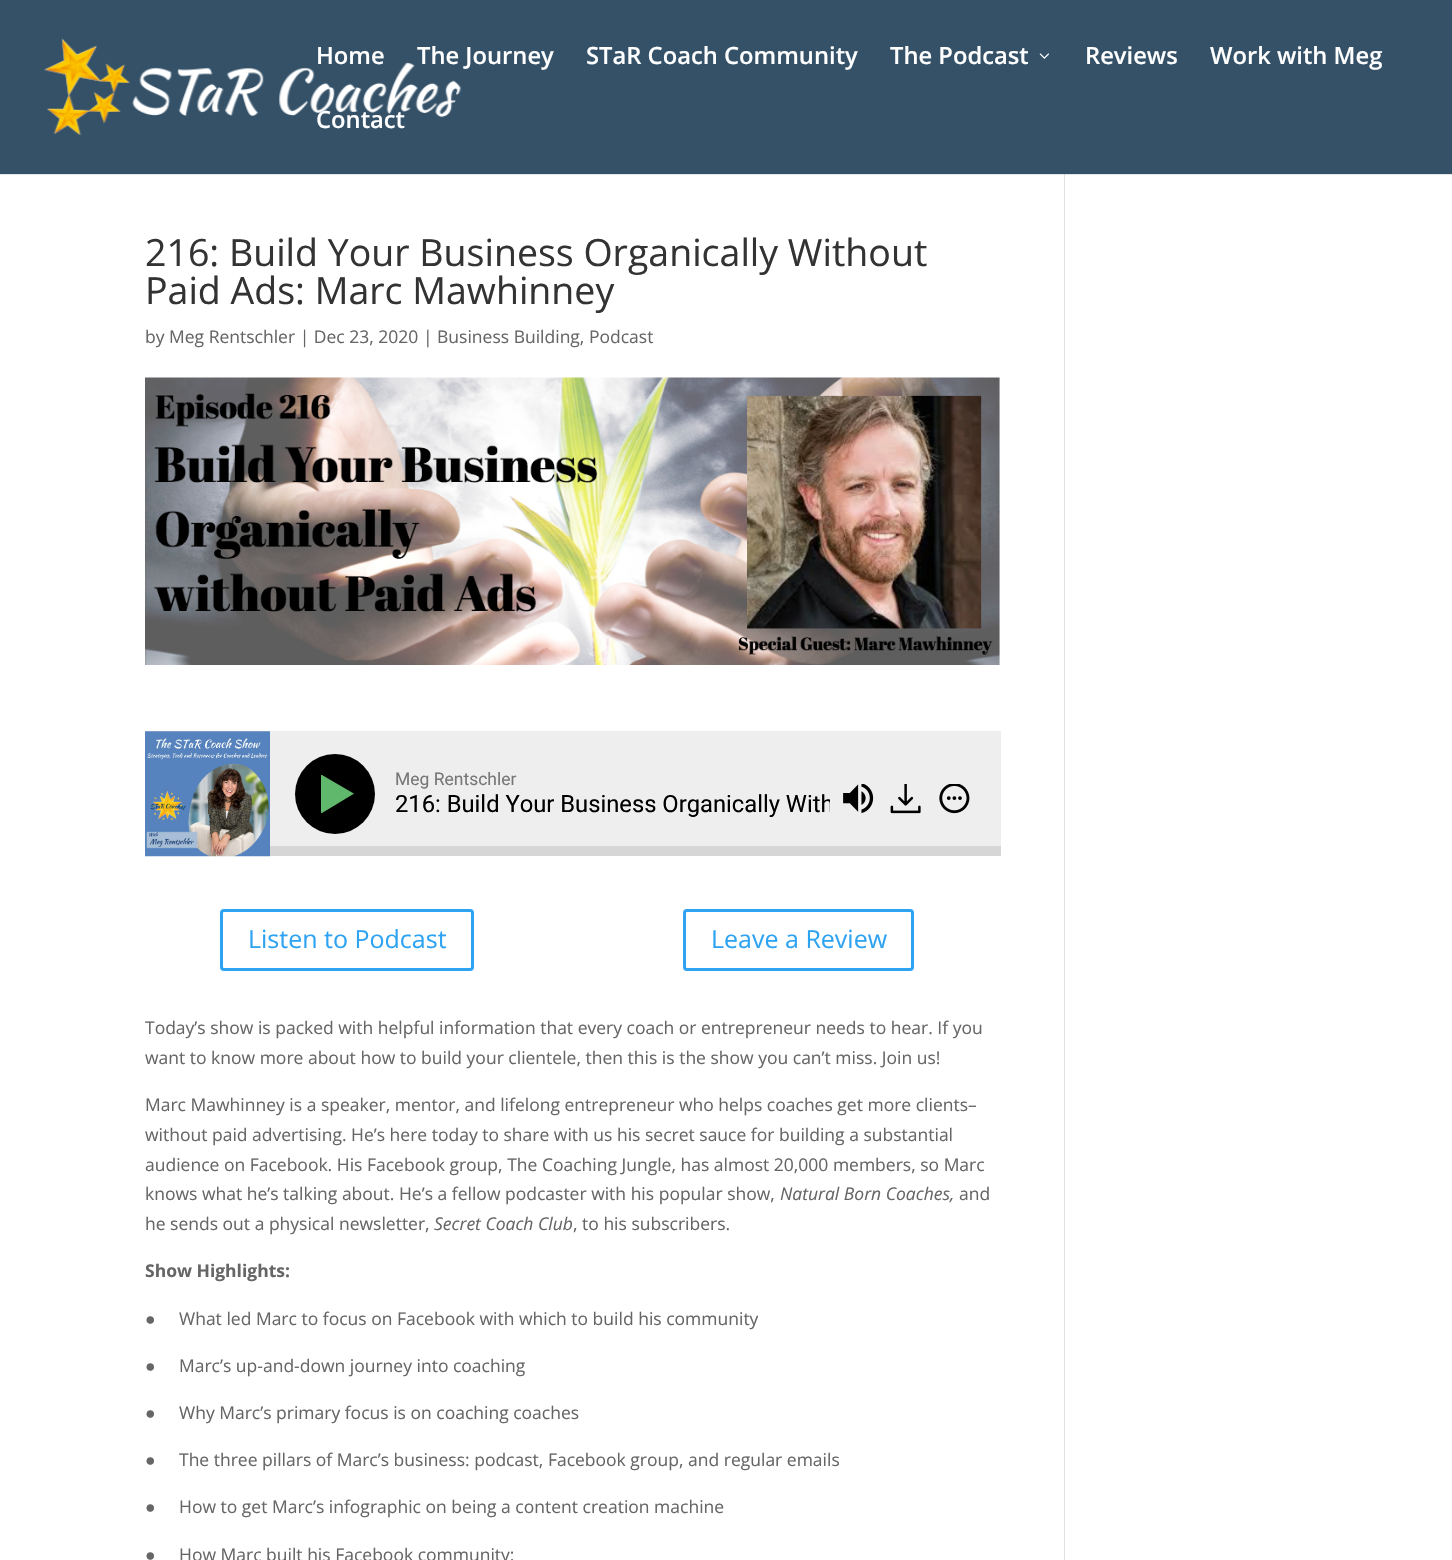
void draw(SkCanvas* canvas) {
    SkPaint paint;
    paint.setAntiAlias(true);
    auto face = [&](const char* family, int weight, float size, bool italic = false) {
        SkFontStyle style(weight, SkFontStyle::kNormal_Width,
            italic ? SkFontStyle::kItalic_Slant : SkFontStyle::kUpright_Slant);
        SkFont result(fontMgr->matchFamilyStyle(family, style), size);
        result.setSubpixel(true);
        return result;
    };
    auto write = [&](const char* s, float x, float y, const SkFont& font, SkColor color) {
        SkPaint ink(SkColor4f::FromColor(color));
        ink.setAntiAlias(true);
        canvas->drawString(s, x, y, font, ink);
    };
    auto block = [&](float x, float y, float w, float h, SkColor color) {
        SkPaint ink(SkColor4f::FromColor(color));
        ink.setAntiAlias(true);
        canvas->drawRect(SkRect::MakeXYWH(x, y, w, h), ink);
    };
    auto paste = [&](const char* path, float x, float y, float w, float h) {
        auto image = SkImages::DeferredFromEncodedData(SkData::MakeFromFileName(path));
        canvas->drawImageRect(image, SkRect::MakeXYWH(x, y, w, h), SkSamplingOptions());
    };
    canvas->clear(SK_ColorWHITE);
    block(1064, 174, 1, 1386, SkColorSetRGB(226, 226, 226));
    paint.setColor(SkColorSetARGB(26, 0, 0, 0));
    canvas->drawPath(SkPathBuilder().moveTo(0, 174).lineTo(0, 175).lineTo(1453, 175).lineTo(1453, 1).lineTo(1452, 1).lineTo(1452, 174).close().detach(), paint);
    block(0, 0, 1452, 174, SkColorSetRGB(52, 81, 104));
    paste("pic1.png", 44, 38, 418, 98);
    auto kFont1 = face("Open Sans", 600, 23.75f);
    write("Home", 316, 64, kFont1, SK_ColorWHITE);
    write("The Journey", 417, 64, kFont1, SK_ColorWHITE);
    write("STaR Coach Community", 586, 64, kFont1, SK_ColorWHITE);
    write("The Podcast", 890, 64, kFont1, SK_ColorWHITE);
    paste("pic2.png", 1039, 53, 10, 6);
    write("Reviews", 1085, 64, kFont1, SK_ColorWHITE);
    write("Work with Meg", 1210, 64, kFont1, SK_ColorWHITE);
    write("Contact", 316, 128, kFont1, SK_ColorWHITE);
    auto kFont2 = face("Open Sans", 400, 37.5f);
    write("216: Build Your Business Organically Without", 145, 266, kFont2, SkColorSetRGB(51, 51, 51));
    write("Paid Ads: Marc Mawhinney", 145, 304, kFont2, SkColorSetRGB(51, 51, 51));
    auto kFont3 = face("Open Sans", 400, 17.5f);
    write("by Meg Rentschler | Dec 23, 2020 | Business Building, Podcast", 145, 343, kFont3, SkColorSetRGB(102, 102, 102));
    paste("pic3.png", 145, 377, 855, 288);
    block(145, 731, 856, 115, SkColorSetRGB(238, 238, 238));
    paste("pic4.png", 145, 731, 125, 126);
    paint.setColor(SK_ColorBLACK);
    canvas->drawCircle(335, 794, 40, paint);
    block(321, 775, 15, 38, SkColorSetRGB(96, 184, 108));
    block(336, 783, 19, 22, SkColorSetRGB(96, 184, 108));
    canvas->save();
    canvas->clipRect(SkRect::MakeXYWH(308, 769, 50, 50));
    canvas->drawPath(SkPathBuilder().moveTo(335, 754).cubicTo(357, 754, 375, 773, 375, 795).lineTo(370, 803).lineTo(322, 775).lineTo(334, 754).close().detach(), paint);
    canvas->drawPath(SkPathBuilder().moveTo(322, 813).lineTo(370, 784).lineTo(375, 793).lineTo(374, 802).cubicTo(370, 821, 353, 835, 334, 834).close().detach(), paint);
    canvas->restore();
    auto kFont4 = face("Roboto", 400, 17.5f);
    write("Meg Rentschler", 395, 785, kFont4, SkColorSetRGB(119, 119, 119));
    canvas->save();
    canvas->clipRect(SkRect::MakeXYWH(395, 790, 435, 29));
    auto kFont5 = face("Roboto", 400, 23.75f);
    write("216: Build Your Business Organically With", 395, 812, kFont5, SK_ColorBLACK);
    canvas->restore();
    paste("pic5.png", 843, 784, 31, 30);
    paste("pic6.png", 890, 784, 31, 30);
    paste("pic7.png", 939, 784, 31, 30);
    block(270, 846, 731, 10, SkColorSetRGB(214, 214, 214));
    paint.setStyle(SkPaint::kStroke_Style);
    paint.setStrokeWidth(3);
    paint.setColor(SkColorSetRGB(46, 163, 242));
    canvas->drawRoundRect(SkRect::MakeXYWH(221.5f, 910.5f, 251, 59), 2.5f, 2.5f, paint);
    auto kFont6 = face("Open Sans", 400, 25);
    write("Listen to Podcast", 248, 948, kFont6, SkColorSetRGB(46, 163, 242));
    canvas->drawRoundRect(SkRect::MakeXYWH(684.5f, 910.5f, 228, 59), 2.5f, 2.5f, paint);
    write("Leave a Review", 711, 948, kFont6, SkColorSetRGB(46, 163, 242));
    write("Today’s show is packed with helpful information that every coach or entrepreneur needs to hear. If you", 145, 1034, kFont3, SkColorSetRGB(102, 102, 102));
    write("want to know more about how to build your clientele, then this is the show you can’t miss. Join us!", 145, 1064, kFont3, SkColorSetRGB(102, 102, 102));
    write("Marc Mawhinney is a speaker, mentor, and lifelong entrepreneur who helps coaches get more clients–", 145, 1111, kFont3, SkColorSetRGB(102, 102, 102));
    write("without paid advertising. He’s here today to share with us his secret sauce for building a substantial", 145, 1141, kFont3, SkColorSetRGB(102, 102, 102));
    write("audience on Facebook. His Facebook group, The Coaching Jungle, has almost 20,000 members, so Marc", 145, 1171, kFont3, SkColorSetRGB(102, 102, 102));
    write("knows what he’s talking about. He’s a fellow podcaster with his popular show,", 145, 1200, kFont3, SkColorSetRGB(102, 102, 102));
    auto kFont7 = face("Open Sans", 400, 17.5f, true);
    write("Natural Born Coaches,", 780, 1200, kFont7, SkColorSetRGB(102, 102, 102));
    write("and", 959, 1200, kFont3, SkColorSetRGB(102, 102, 102));
    write("he sends out a physical newsletter,", 145, 1230, kFont3, SkColorSetRGB(102, 102, 102));
    write("Secret Coach Club", 434, 1230, kFont7, SkColorSetRGB(102, 102, 102));
    write(", to his subscribers.", 573, 1230, kFont3, SkColorSetRGB(102, 102, 102));
    auto kFont8 = face("Open Sans", 700, 17.5f);
    write("Show Highlights:", 145, 1277, kFont8, SkColorSetRGB(102, 102, 102));
    auto kFont9 = face("Liberation Sans", 400, 17.5f);
    write("●", 145, 1325, kFont9, SkColorSetRGB(102, 102, 102));
    write("What led Marc to focus on Facebook with which to build his community", 179, 1325, kFont3, SkColorSetRGB(102, 102, 102));
    write("●", 145, 1372, kFont9, SkColorSetRGB(102, 102, 102));
    write("Marc’s up-and-down journey into coaching", 179, 1372, kFont3, SkColorSetRGB(102, 102, 102));
    write("●", 145, 1419, kFont9, SkColorSetRGB(102, 102, 102));
    write("Why Marc’s primary focus is on coaching coaches", 179, 1419, kFont3, SkColorSetRGB(102, 102, 102));
    write("●", 145, 1466, kFont9, SkColorSetRGB(102, 102, 102));
    write("The three pillars of Marc’s business: podcast, Facebook group, and regular emails", 179, 1466, kFont3, SkColorSetRGB(102, 102, 102));
    write("●", 145, 1513, kFont9, SkColorSetRGB(102, 102, 102));
    write("How to get Marc’s infographic on being a content creation machine", 179, 1513, kFont3, SkColorSetRGB(102, 102, 102));
    write("●", 145, 1561, kFont9, SkColorSetRGB(102, 102, 102));
    write("How Marc built his Facebook community:", 179, 1561, kFont3, SkColorSetRGB(102, 102, 102));
}
